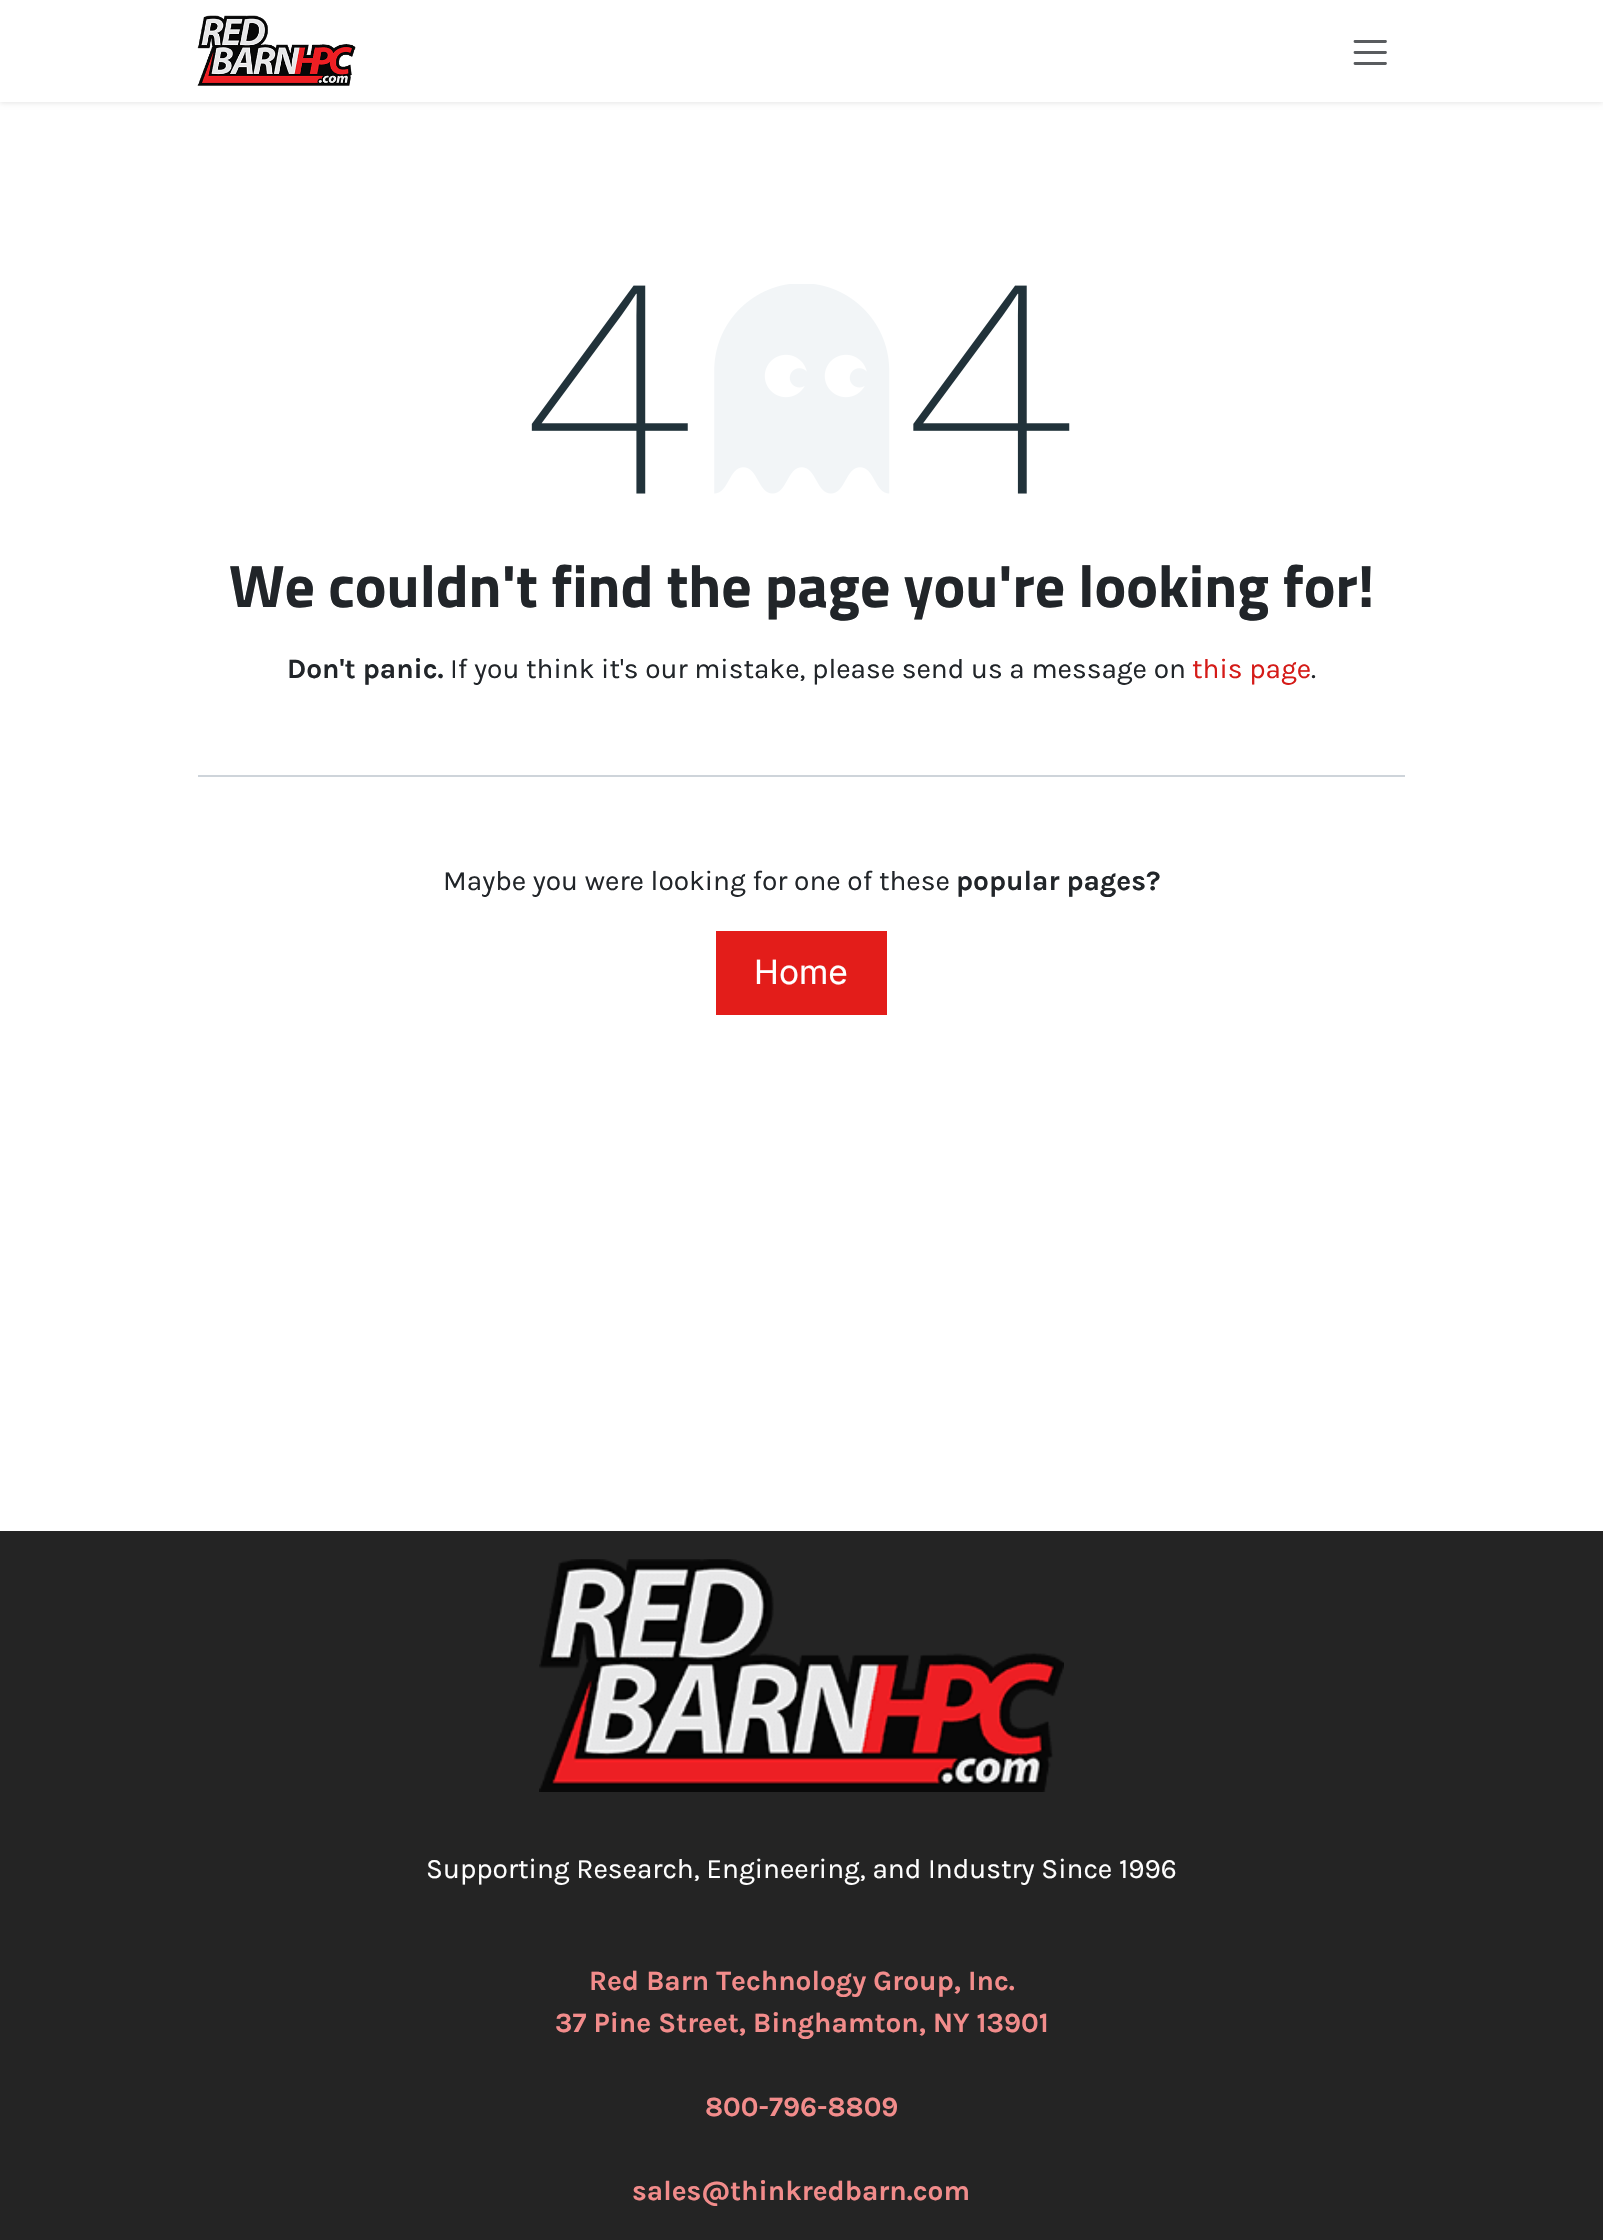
void draw(SkCanvas* canvas) {
    SkPaint paint;
    paint.setAntiAlias(true);
    auto face = [&](const char* family, int weight, float size, bool italic = false) {
        SkFontStyle style(weight, SkFontStyle::kNormal_Width,
            italic ? SkFontStyle::kItalic_Slant : SkFontStyle::kUpright_Slant);
        SkFont result(fontMgr->matchFamilyStyle(family, style), size);
        result.setSubpixel(true);
        return result;
    };
    auto write = [&](const char* s, float x, float y, const SkFont& font, SkColor color) {
        SkPaint ink(SkColor4f::FromColor(color));
        ink.setAntiAlias(true);
        canvas->drawString(s, x, y, font, ink);
    };
    auto block = [&](float x, float y, float w, float h, SkColor color) {
        SkPaint ink(SkColor4f::FromColor(color));
        ink.setAntiAlias(true);
        canvas->drawRect(SkRect::MakeXYWH(x, y, w, h), ink);
    };
    auto paste = [&](const char* path, float x, float y, float w, float h) {
        auto image = SkImages::DeferredFromEncodedData(SkData::MakeFromFileName(path));
        canvas->drawImageRect(image, SkRect::MakeXYWH(x, y, w, h), SkSamplingOptions());
    };
    canvas->clear(SK_ColorWHITE);
    paint.setColor(SkColorSetARGB(26, 0, 0, 0));
    paint.setMaskFilter(SkMaskFilter::MakeBlur(kNormal_SkBlurStyle, 2.5f));
    canvas->drawRect(SkRect::MakeXYWH(0, 2, 1603, 101), paint);
    paint.setMaskFilter(nullptr);
    block(0, 0, 1603, 102, SK_ColorWHITE);
    paste("pic1.png", 197, 15, 159, 71);
    paint.setStyle(SkPaint::kStroke_Style);
    paint.setStrokeWidth(2.8f);
    paint.setStrokeCap(SkPaint::kRound_Cap);
    paint.setColor(SkColorSetRGB(89, 92, 95));
    canvas->drawPath(SkPathBuilder().moveTo(1355, 41.5f).lineTo(1385.5f, 41.5f).moveTo(1355, 52.5f).lineTo(1385.5f, 52.5f).moveTo(1355, 63.5f).lineTo(1385.5f, 63.5f).detach(), paint);
    paste("pic2.png", 531, 284, 539, 210);
    auto kFont1 = face("Titillium Web", 700, 59.75f);
    write("We couldn't find the page you're looking for!", 229, 607, kFont1, SkColorSetRGB(33, 37, 41));
    auto kFont2 = face("Karla", 700, 28);
    write("Don't panic.", 287, 678, kFont2, SkColorSetRGB(33, 37, 41));
    auto kFont3 = face("Karla", 400, 28);
    write("If you think it's our mistake, please send us a message on", 450, 678, kFont3, SkColorSetRGB(33, 37, 41));
    write("this page", 1192, 678, kFont3, SkColorSetRGB(213, 27, 24));
    write(".", 1311, 678, kFont3, SkColorSetRGB(33, 37, 41));
    block(198, 775, 1207, 2, SkColorSetRGB(206, 212, 218));
    write("Maybe you were looking for one of these", 443, 890, kFont3, SkColorSetRGB(33, 37, 41));
    write("popular pages?", 956, 890, kFont2, SkColorSetRGB(33, 37, 41));
    paint.setStyle(SkPaint::kFill_Style);
    paint.setColor(SkColorSetRGB(227, 29, 26));
    canvas->drawRect(SkRect::MakeXYWH(718, 933, 167, 80), paint);
    paint.setStyle(SkPaint::kStroke_Style);
    paint.setStrokeWidth(4);
    paint.setStrokeCap(SkPaint::kButt_Cap);
    canvas->drawRect(SkRect::MakeXYWH(718, 933, 167, 80), paint);
    auto kFont4 = face("Inter", 400, 33.5f);
    write("Home", 754, 984, kFont4, SK_ColorWHITE);
    block(0, 1531, 1603, 709, SkColorSetRGB(36, 36, 36));
    paste("pic3.png", 539, 1559, 525, 233);
    write("Supporting Research, Engineering, and Industry Since 1996", 426, 1878, kFont3, SK_ColorWHITE);
    write("Red Barn Technology Group, Inc.", 589, 1990, kFont2, SkColorSetRGB(242, 140, 139));
    write("37 Pine Street, Binghamton, NY 13901", 555, 2032, kFont2, SkColorSetRGB(242, 140, 139));
    write("800-796-8809", 705, 2116, kFont2, SkColorSetRGB(242, 140, 139));
    write("sales@thinkredbarn.com", 632, 2200, kFont2, SkColorSetRGB(242, 140, 139));
}
